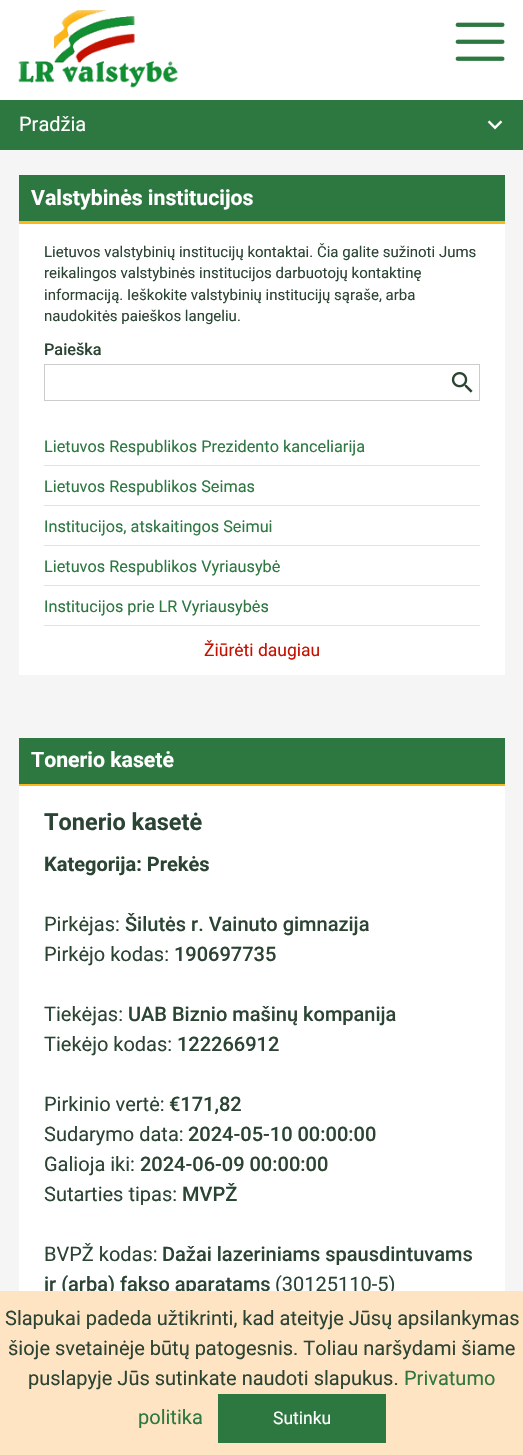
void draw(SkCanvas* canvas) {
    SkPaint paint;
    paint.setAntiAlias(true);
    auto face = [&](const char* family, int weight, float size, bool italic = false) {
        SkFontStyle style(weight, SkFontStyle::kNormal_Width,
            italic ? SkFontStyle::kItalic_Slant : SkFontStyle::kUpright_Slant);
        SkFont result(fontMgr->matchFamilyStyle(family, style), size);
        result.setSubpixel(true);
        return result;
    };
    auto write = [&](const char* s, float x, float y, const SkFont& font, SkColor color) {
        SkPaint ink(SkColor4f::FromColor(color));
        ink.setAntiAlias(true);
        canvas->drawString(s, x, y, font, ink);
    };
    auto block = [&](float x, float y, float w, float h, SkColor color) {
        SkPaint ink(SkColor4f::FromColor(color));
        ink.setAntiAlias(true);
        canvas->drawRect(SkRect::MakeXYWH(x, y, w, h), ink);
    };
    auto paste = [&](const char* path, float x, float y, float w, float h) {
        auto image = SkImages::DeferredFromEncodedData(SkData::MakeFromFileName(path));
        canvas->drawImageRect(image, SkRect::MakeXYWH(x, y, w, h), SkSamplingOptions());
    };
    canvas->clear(SkColorSetRGB(245, 245, 245));
    block(0, 0, 523, 100, SK_ColorWHITE);
    paste("pic1.png", 18, 10, 160, 78);
    paste("pic2.png", 455, 22, 50, 39);
    block(0, 100, 523, 50, SkColorSetRGB(45, 119, 64));
    auto kFont1 = face("Roboto", 400, 20);
    write("Pradžia", 19, 131, kFont1, SK_ColorWHITE);
    paste("pic3.png", 487, 120, 16, 10);
    block(19, 224, 486, 451, SK_ColorWHITE);
    block(19, 175, 486, 46, SkColorSetRGB(45, 119, 64));
    block(19, 221, 486, 3, SkColorSetRGB(252, 184, 27));
    auto kFont2 = face("Roboto", 700, 21.25f);
    write("Valstybinės institucijos", 31, 205, kFont2, SK_ColorWHITE);
    auto kFont3 = face("Roboto", 400, 15);
    write("Lietuvos valstybinių institucijų kontaktai. Čia galite sužinoti Jums", 44, 257, kFont3, SkColorSetRGB(43, 68, 51));
    write("reikalingos valstybinės institucijos darbuotojų kontaktinę", 44, 278, kFont3, SkColorSetRGB(43, 68, 51));
    write("informaciją. Ieškokite valstybinių institucijų sąraše, arba", 44, 300, kFont3, SkColorSetRGB(43, 68, 51));
    write("naudokitės paieškos langeliu.", 44, 321, kFont3, SkColorSetRGB(43, 68, 51));
    auto kFont4 = face("Roboto", 500, 16.25f);
    write("Paieška", 44, 355, kFont4, SkColorSetRGB(43, 68, 51));
    paint.setStyle(SkPaint::kStroke_Style);
    paint.setStrokeWidth(1);
    paint.setColor(SkColorSetRGB(204, 204, 204));
    canvas->drawRect(SkRect::MakeXYWH(44.5f, 364.5f, 435, 36), paint);
    paste("pic4.png", 451, 372, 22, 21);
    block(44, 465, 436, 1, SkColorSetRGB(219, 229, 233));
    auto kFont5 = face("Roboto", 400, 16.25f);
    write("Lietuvos Respublikos Prezidento kanceliarija", 44, 452, kFont5, SkColorSetRGB(45, 119, 64));
    block(44, 505, 436, 1, SkColorSetRGB(219, 229, 233));
    write("Lietuvos Respublikos Seimas", 44, 492, kFont5, SkColorSetRGB(45, 119, 64));
    block(44, 545, 436, 1, SkColorSetRGB(219, 229, 233));
    write("Institucijos, atskaitingos Seimui", 44, 532, kFont5, SkColorSetRGB(45, 119, 64));
    block(44, 585, 436, 1, SkColorSetRGB(219, 229, 233));
    write("Lietuvos Respublikos Vyriausybė", 44, 572, kFont5, SkColorSetRGB(45, 119, 64));
    block(44, 625, 436, 1, SkColorSetRGB(219, 229, 233));
    write("Institucijos prie LR Vyriausybės", 44, 612, kFont5, SkColorSetRGB(45, 119, 64));
    auto kFont6 = face("Roboto", 400, 17.5f);
    write("Žiūrėti daugiau", 204, 656, kFont6, SkColorSetRGB(198, 17, 1));
    block(19, 738, 486, 46, SkColorSetRGB(45, 119, 64));
    block(19, 784, 486, 2, SkColorSetRGB(252, 184, 27));
    write("Tonerio kasetė", 31, 767, kFont2, SK_ColorWHITE);
    block(19, 786, 486, 505, SK_ColorWHITE);
    auto kFont7 = face("Roboto", 700, 23.5f);
    write("Tonerio kasetė", 44, 830, kFont7, SkColorSetRGB(43, 68, 51));
    auto kFont8 = face("Roboto", 700, 20);
    write("Kategorija: Prekės", 44, 871, kFont8, SkColorSetRGB(43, 68, 51));
    write("Pirkėjas:", 44, 931, kFont1, SkColorSetRGB(43, 68, 51));
    auto kFont9 = face("Roboto", 500, 20);
    write("Šilutės r. Vainuto gimnazija", 125, 931, kFont9, SkColorSetRGB(43, 68, 51));
    write("Pirkėjo kodas:", 44, 961, kFont1, SkColorSetRGB(43, 68, 51));
    write("190697735", 174, 961, kFont9, SkColorSetRGB(43, 68, 51));
    write("Tiekėjas:", 44, 1021, kFont1, SkColorSetRGB(43, 68, 51));
    write("UAB Biznio mašinų kompanija", 128, 1021, kFont9, SkColorSetRGB(43, 68, 51));
    write("Tiekėjo kodas:", 44, 1051, kFont1, SkColorSetRGB(43, 68, 51));
    write("122266912", 177, 1051, kFont9, SkColorSetRGB(43, 68, 51));
    write("Pirkinio vertė:", 44, 1111, kFont1, SkColorSetRGB(43, 68, 51));
    write("€171,82", 169, 1111, kFont9, SkColorSetRGB(43, 68, 51));
    write("Sudarymo data:", 44, 1141, kFont1, SkColorSetRGB(43, 68, 51));
    write("2024-05-10 00:00:00", 188, 1141, kFont9, SkColorSetRGB(43, 68, 51));
    write("Galioja iki:", 44, 1171, kFont1, SkColorSetRGB(43, 68, 51));
    write("2024-06-09 00:00:00", 140, 1171, kFont9, SkColorSetRGB(43, 68, 51));
    write("Sutarties tipas:", 44, 1201, kFont1, SkColorSetRGB(43, 68, 51));
    write("MVPŽ", 182, 1201, kFont9, SkColorSetRGB(43, 68, 51));
    write("BVPŽ kodas:", 44, 1261, kFont1, SkColorSetRGB(43, 68, 51));
    write("Dažai lazeriniams spausdintuvams", 162, 1261, kFont9, SkColorSetRGB(43, 68, 51));
    write("ir (arba) fakso aparatams", 44, 1291, kFont9, SkColorSetRGB(43, 68, 51));
    write("(30125110-5)", 275, 1291, kFont1, SkColorSetRGB(43, 68, 51));
    block(0, 1291, 523, 164, SkColorSetRGB(255, 228, 196));
    write("Slapukai padeda užtikrinti, kad ateityje Jūsų apsilankymas", 5, 1325, kFont1, SkColorSetRGB(43, 68, 51));
    write("šioje svetainėje būtų patogesnis. Toliau naršydami šiame", 8, 1355, kFont1, SkColorSetRGB(43, 68, 51));
    write("puslapyje Jūs sutinkate naudoti slapukus.", 28, 1385, kFont1, SkColorSetRGB(43, 68, 51));
    write("Privatumo", 404, 1385, kFont1, SkColorSetRGB(45, 119, 64));
    write("politika", 138, 1424, kFont1, SkColorSetRGB(45, 119, 64));
    block(218, 1394, 168, 49, SkColorSetRGB(45, 119, 64));
    write("Sutinku", 273, 1424, kFont6, SK_ColorWHITE);
}
